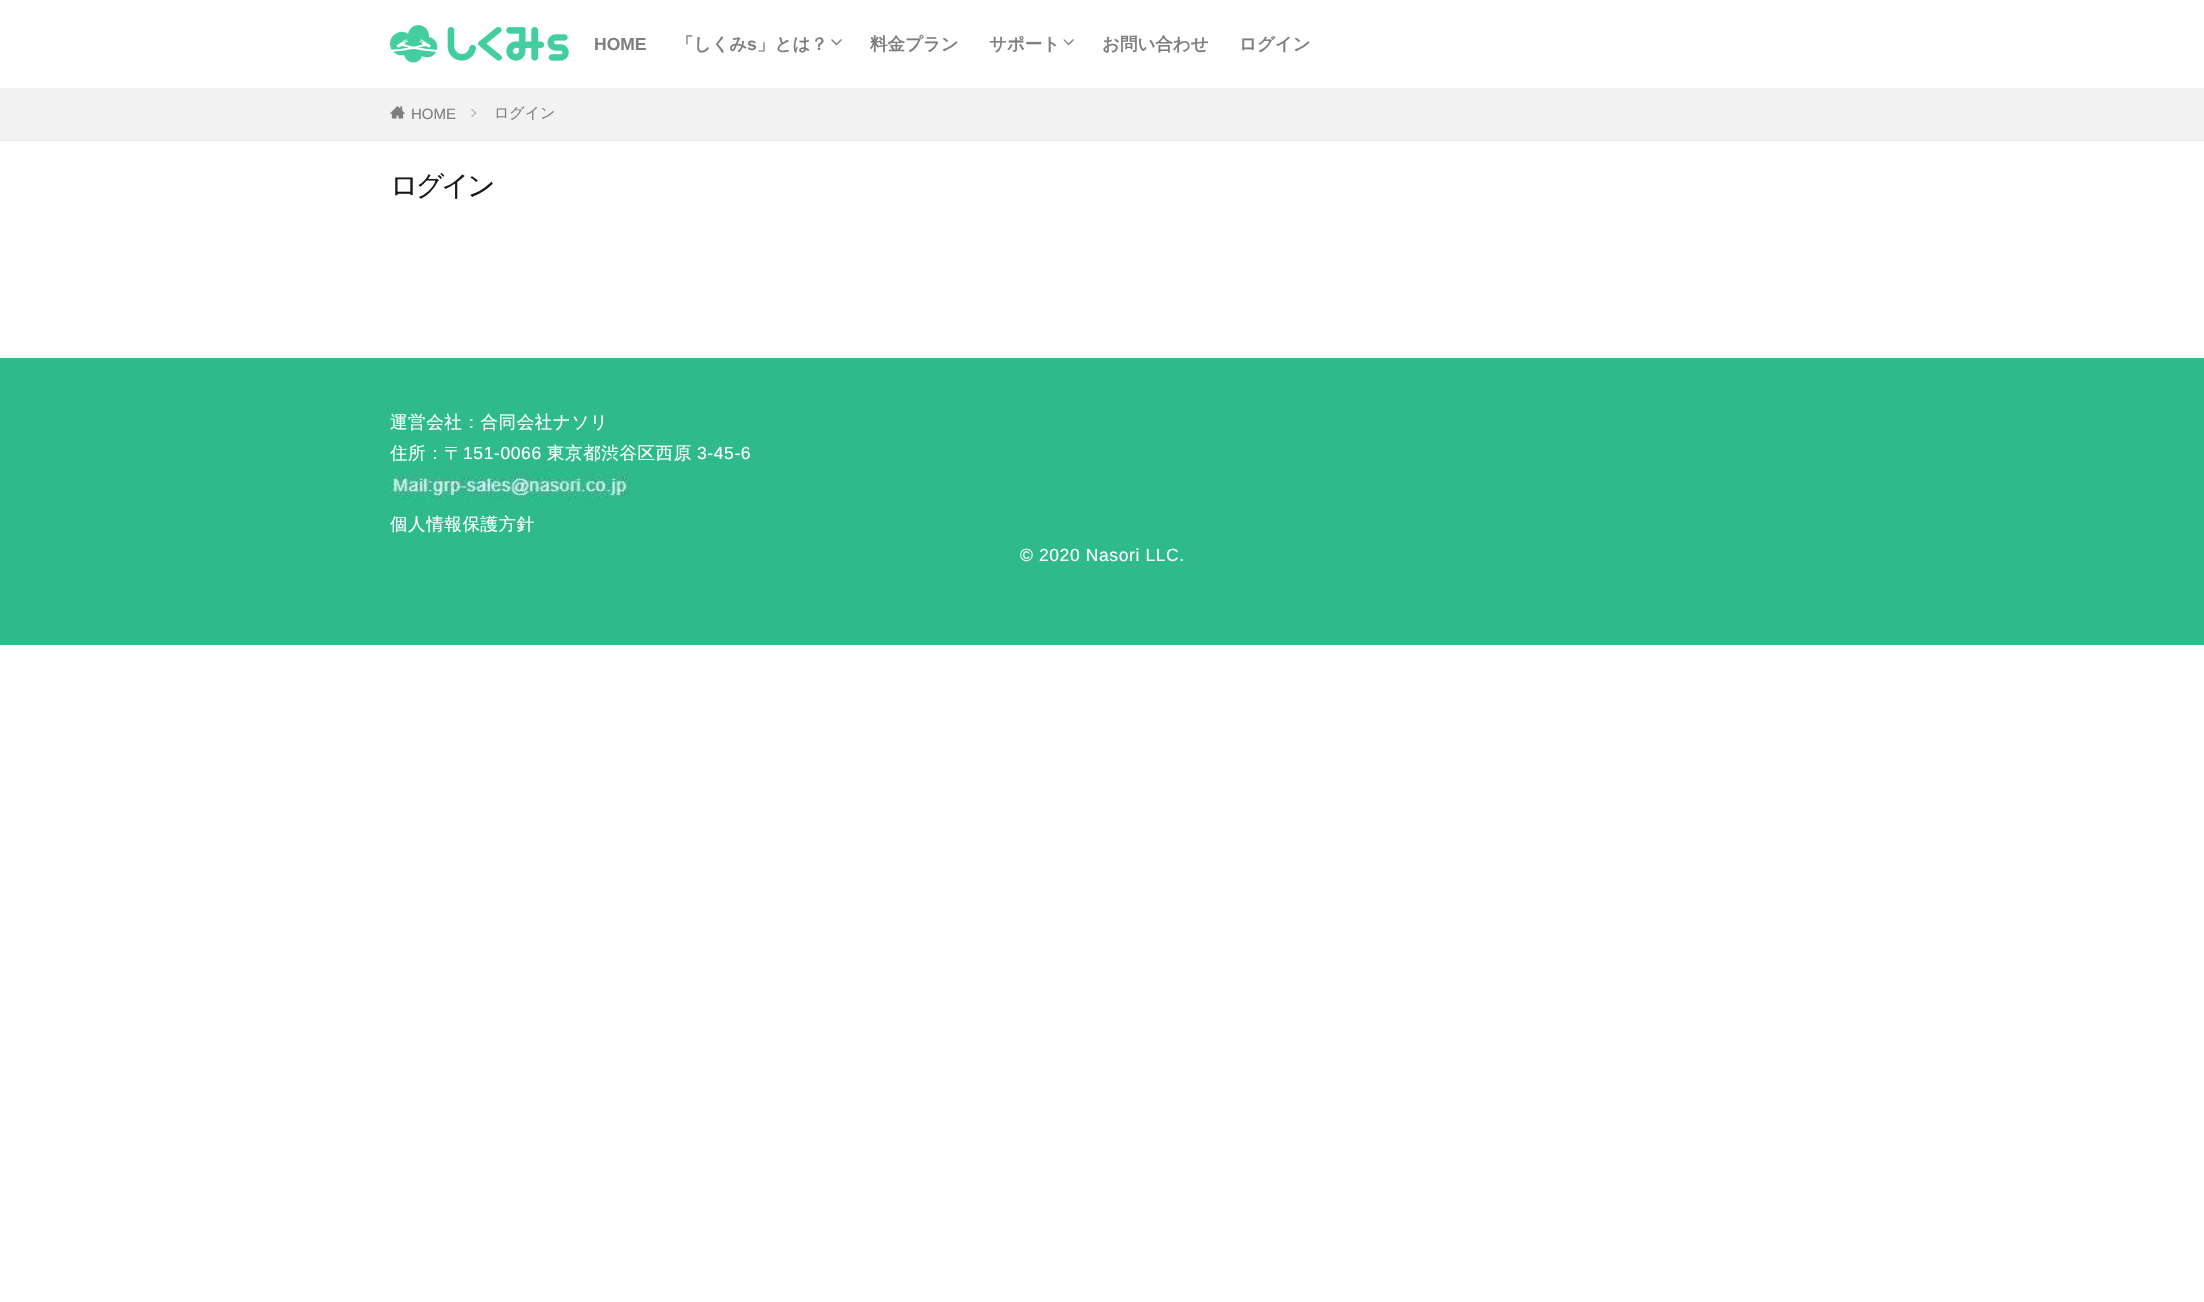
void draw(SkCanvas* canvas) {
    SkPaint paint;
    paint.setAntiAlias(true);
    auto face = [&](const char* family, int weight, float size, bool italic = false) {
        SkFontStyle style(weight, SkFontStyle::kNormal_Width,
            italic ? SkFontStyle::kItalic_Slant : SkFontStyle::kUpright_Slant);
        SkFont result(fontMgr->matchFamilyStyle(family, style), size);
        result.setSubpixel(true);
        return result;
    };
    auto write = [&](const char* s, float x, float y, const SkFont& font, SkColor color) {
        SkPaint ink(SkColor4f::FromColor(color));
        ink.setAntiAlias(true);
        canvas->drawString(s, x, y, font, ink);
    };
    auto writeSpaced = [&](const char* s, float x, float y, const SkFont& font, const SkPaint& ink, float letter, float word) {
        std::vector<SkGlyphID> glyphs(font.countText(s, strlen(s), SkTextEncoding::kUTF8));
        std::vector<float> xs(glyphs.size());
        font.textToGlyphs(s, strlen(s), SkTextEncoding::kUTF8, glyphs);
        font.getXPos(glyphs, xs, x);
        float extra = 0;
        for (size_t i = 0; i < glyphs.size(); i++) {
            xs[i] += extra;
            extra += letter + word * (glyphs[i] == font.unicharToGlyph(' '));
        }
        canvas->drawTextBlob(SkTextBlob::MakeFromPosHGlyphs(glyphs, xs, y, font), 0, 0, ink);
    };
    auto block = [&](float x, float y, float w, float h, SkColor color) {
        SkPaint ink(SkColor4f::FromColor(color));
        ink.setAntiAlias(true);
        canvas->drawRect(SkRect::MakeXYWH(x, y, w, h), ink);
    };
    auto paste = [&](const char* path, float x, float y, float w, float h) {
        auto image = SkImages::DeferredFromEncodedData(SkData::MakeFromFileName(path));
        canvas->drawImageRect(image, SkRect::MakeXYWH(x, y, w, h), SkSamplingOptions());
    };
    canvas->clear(SK_ColorWHITE);
    paste("pic1.png", 390, 25, 179, 38);
    auto kFont1 = face("Liberation Sans", 700, 17.5f);
    write("HOME", 594, 50, kFont1, SkColorSetRGB(127, 127, 127));
    auto kFont2 = face("WenQuanYi Zen Hei", 700, 17.5f);
    write("「しくみ", 676, 50, kFont2, SkColorSetRGB(127, 127, 127));
    write("s", 747, 50, kFont1, SkColorSetRGB(127, 127, 127));
    write("」とは？", 757, 50, kFont2, SkColorSetRGB(127, 127, 127));
    paint.setColor(SkColorSetRGB(128, 128, 128));
    canvas->drawPath(SkPathBuilder().moveTo(842, 40).lineTo(836.5f, 45.5f).lineTo(836.5f, 43.5f).lineTo(841, 39).close().detach(), paint);
    paint.setColor(SkColorSetARGB(128, 0, 0, 0));
    canvas->drawPath(SkPathBuilder().moveTo(836.5f, 45.5f).lineTo(831, 40).lineTo(832, 39).lineTo(836.5f, 43.5f).close().detach(), paint);
    write("料金プラン", 870, 50, kFont2, SkColorSetRGB(127, 127, 127));
    write("サポート", 989, 50, kFont2, SkColorSetRGB(127, 127, 127));
    paint.setColor(SkColorSetRGB(128, 128, 128));
    canvas->drawPath(SkPathBuilder().moveTo(1074, 40).lineTo(1068.5f, 45.5f).lineTo(1068.5f, 43.5f).lineTo(1073, 39).close().detach(), paint);
    paint.setColor(SkColorSetARGB(128, 0, 0, 0));
    canvas->drawPath(SkPathBuilder().moveTo(1068.5f, 45.5f).lineTo(1063.5f, 40).lineTo(1064, 39).lineTo(1068.5f, 43.5f).close().detach(), paint);
    write("お問い合わせ", 1102, 50, kFont2, SkColorSetRGB(127, 127, 127));
    write("ログイン", 1239, 50, kFont2, SkColorSetRGB(127, 127, 127));
    block(0, 88, 2204, 52, SkColorSetRGB(242, 242, 242));
    block(0, 140, 2204, 1, SkColorSetRGB(230, 230, 230));
    paste("pic2.png", 390, 106, 15, 13);
    auto kFont3 = face("Liberation Sans", 400, 15);
    write("HOME", 411, 119, kFont3, SkColorSetRGB(127, 127, 127));
    paint.setColor(SkColorSetRGB(191, 191, 191));
    canvas->drawPath(SkPathBuilder().moveTo(472, 108.5f).lineTo(476.5f, 113).lineTo(475.5f, 114).lineTo(471, 109.5f).close().detach(), paint);
    canvas->drawPath(SkPathBuilder().moveTo(475.5f, 112).lineTo(476.5f, 113).lineTo(472, 117.5f).lineTo(471, 116.5f).close().detach(), paint);
    auto kFont4 = face("WenQuanYi Zen Hei", 500, 15);
    write("ログイン", 494, 118, kFont4, SkColorSetRGB(127, 127, 127));
    auto kFont5 = face("WenQuanYi Zen Hei", 500, 28);
    paint.setColor(SkColorSetRGB(25, 25, 25));
    writeSpaced("ログイン", 390, 195, kFont5, paint, -3, 0);
    block(0, 358, 2204, 287, SkColorSetRGB(46, 186, 139));
    auto kFont6 = face("WenQuanYi Zen Hei", 500, 17.5f);
    paint.setColor(SK_ColorWHITE);
    writeSpaced("運営会社：合同会社ナソリ", 390, 428, kFont6, paint, 0.6f, 0);
    writeSpaced("住所：〒", 390, 459, kFont6, paint, 0.6f, 0);
    auto kFont7 = face("Liberation Sans", 400, 17.5f);
    writeSpaced("151-0066", 463, 459, kFont7, paint, 0.6f, 0);
    writeSpaced("東京都渋谷区西原", 547, 459, kFont6, paint, 0.6f, 0);
    writeSpaced("3-45-6", 697, 459, kFont7, paint, 0.6f, 0);
    paste("pic3.png", 390, 469, 239, 31);
    writeSpaced("個人情報保護方針", 390, 530, kFont6, paint, 0.6f, 0);
    writeSpaced("© 2020 Nasori LLC.", 1020, 561, kFont7, paint, 0.6f, 0);
}
